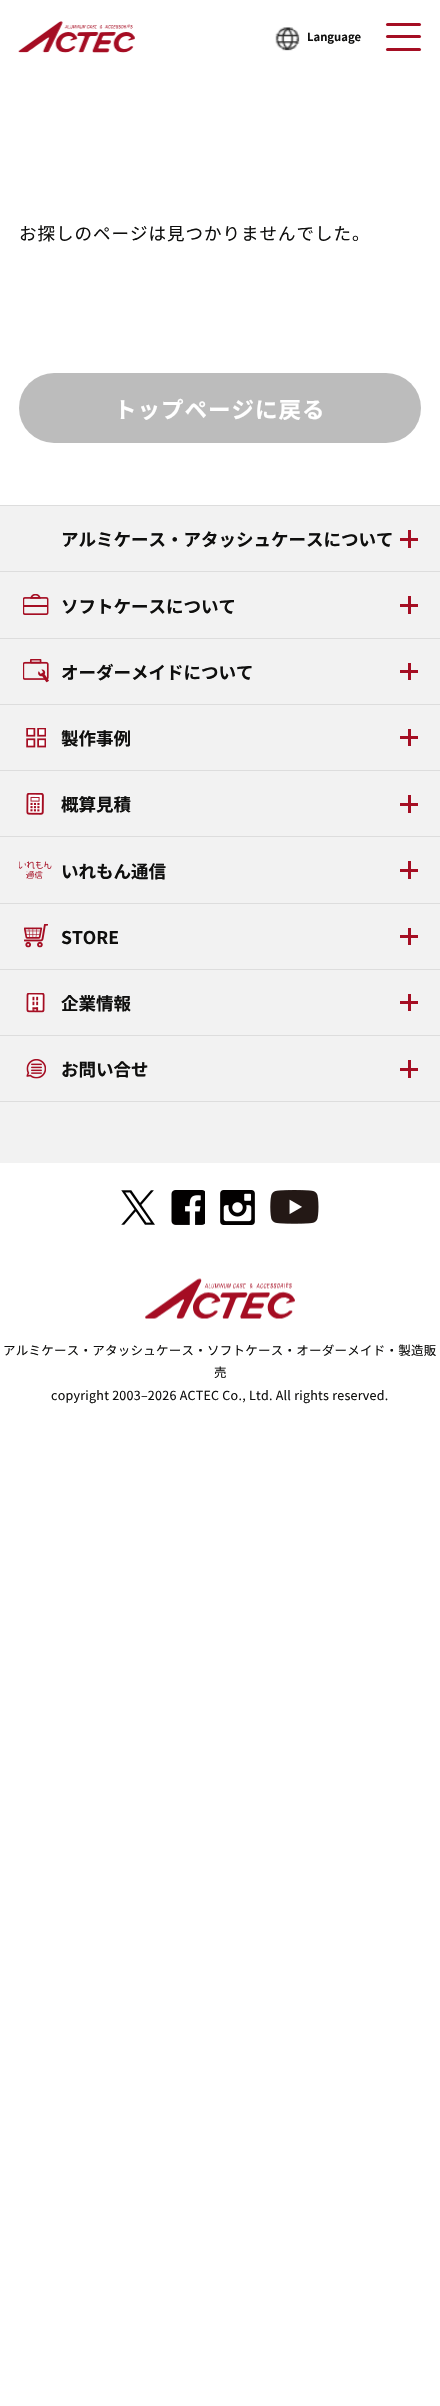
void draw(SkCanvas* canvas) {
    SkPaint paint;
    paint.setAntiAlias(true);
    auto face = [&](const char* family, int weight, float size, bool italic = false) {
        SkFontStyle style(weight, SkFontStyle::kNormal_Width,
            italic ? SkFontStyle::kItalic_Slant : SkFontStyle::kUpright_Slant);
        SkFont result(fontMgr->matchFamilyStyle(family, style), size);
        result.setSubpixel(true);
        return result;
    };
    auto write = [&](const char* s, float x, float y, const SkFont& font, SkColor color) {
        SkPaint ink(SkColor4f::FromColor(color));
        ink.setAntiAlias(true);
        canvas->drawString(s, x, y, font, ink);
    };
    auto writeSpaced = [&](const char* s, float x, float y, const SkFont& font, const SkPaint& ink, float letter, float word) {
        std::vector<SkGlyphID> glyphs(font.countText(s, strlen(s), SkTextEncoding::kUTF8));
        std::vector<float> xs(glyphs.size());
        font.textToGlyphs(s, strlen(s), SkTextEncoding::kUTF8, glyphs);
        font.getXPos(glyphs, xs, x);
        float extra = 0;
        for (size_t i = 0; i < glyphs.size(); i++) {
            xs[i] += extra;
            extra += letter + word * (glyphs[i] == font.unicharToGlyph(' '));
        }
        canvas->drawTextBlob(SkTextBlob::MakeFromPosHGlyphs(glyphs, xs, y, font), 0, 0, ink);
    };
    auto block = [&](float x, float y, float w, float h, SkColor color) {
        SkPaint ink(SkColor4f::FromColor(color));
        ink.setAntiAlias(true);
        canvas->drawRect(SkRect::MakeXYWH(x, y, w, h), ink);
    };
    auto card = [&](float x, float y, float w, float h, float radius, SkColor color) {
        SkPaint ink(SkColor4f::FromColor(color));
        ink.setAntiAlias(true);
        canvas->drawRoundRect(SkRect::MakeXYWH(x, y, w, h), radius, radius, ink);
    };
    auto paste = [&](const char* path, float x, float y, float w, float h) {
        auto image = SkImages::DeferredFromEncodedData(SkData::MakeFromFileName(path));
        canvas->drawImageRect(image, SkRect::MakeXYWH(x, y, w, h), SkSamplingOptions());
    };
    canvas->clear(SK_ColorWHITE);
    paste("pic1.png", 18, 21, 117, 32);
    paste("pic2.png", 275, 27, 25, 24);
    auto kFont1 = face("Noto Sans JP", 700, 11.25f);
    write("Language", 307, 41, kFont1, SkColorSetRGB(15, 15, 14));
    card(386, 35, 35, 3, 1.5f, SkColorSetRGB(165, 14, 35));
    card(386, 23, 35, 3, 1.5f, SkColorSetRGB(165, 14, 35));
    card(386, 48, 35, 3, 1.5f, SkColorSetRGB(165, 14, 35));
    auto kFont2 = face("Noto Sans JP", 400, 17.5f);
    paint.setColor(SkColorSetRGB(15, 15, 14));
    writeSpaced("お探しのページは見つかりませんでした。", 19, 240, kFont2, paint, 1, 0);
    card(19, 373, 402, 70, 35, SkColorSetRGB(188, 188, 188));
    auto kFont3 = face("Noto Sans JP", 700, 22.5f);
    paint.setColor(SK_ColorWHITE);
    writeSpaced("トップページに戻る", 114, 418, kFont3, paint, 1, 0);
    block(0, 506, 440, 657, SkColorSetRGB(242, 242, 242));
    block(0, 1101, 440, 1, SkColorSetRGB(221, 221, 221));
    block(0, 505, 440, 1, SkColorSetRGB(221, 221, 221));
    auto kFont4 = face("Noto Sans JP", 700, 17.5f);
    write("アルミケース・アタッシュケースについて", 61, 546, kFont4, SkColorSetRGB(15, 15, 14));
    block(400, 538, 18, 3, SkColorSetRGB(165, 14, 35));
    block(408, 530, 3, 18, SkColorSetRGB(165, 14, 35));
    block(0, 571, 440, 1, SkColorSetRGB(221, 221, 221));
    paste("pic3.png", 23, 594, 26, 21);
    write("ソフトケースについて", 61, 613, kFont4, SkColorSetRGB(15, 15, 14));
    block(400, 604, 18, 3, SkColorSetRGB(165, 14, 35));
    block(408, 596, 3, 18, SkColorSetRGB(165, 14, 35));
    block(0, 638, 440, 1, SkColorSetRGB(221, 221, 221));
    paste("pic4.png", 23, 659, 26, 24);
    write("オーダーメイドについて", 61, 679, kFont4, SkColorSetRGB(15, 15, 14));
    block(400, 670, 18, 3, SkColorSetRGB(165, 14, 35));
    block(408, 663, 3, 17, SkColorSetRGB(165, 14, 35));
    block(0, 704, 440, 1, SkColorSetRGB(221, 221, 221));
    paste("pic5.png", 26, 728, 20, 20);
    write("製作事例", 61, 745, kFont4, SkColorSetRGB(15, 15, 14));
    block(400, 736, 18, 3, SkColorSetRGB(165, 14, 35));
    block(408, 729, 3, 17, SkColorSetRGB(165, 14, 35));
    block(0, 770, 440, 1, SkColorSetRGB(221, 221, 221));
    paste("pic6.png", 26, 793, 18, 22);
    write("概算見積", 61, 811, kFont4, SkColorSetRGB(15, 15, 14));
    block(400, 803, 18, 3, SkColorSetRGB(165, 14, 35));
    block(408, 795, 3, 18, SkColorSetRGB(165, 14, 35));
    block(0, 836, 440, 1, SkColorSetRGB(221, 221, 221));
    paste("pic7.png", 19, 861, 33, 18);
    write("いれもん通信", 61, 878, kFont4, SkColorSetRGB(15, 15, 14));
    block(400, 869, 18, 3, SkColorSetRGB(165, 14, 35));
    block(408, 861, 3, 18, SkColorSetRGB(165, 14, 35));
    block(0, 903, 440, 1, SkColorSetRGB(221, 221, 221));
    paste("pic8.png", 24, 924, 24, 24);
    write("STORE", 61, 944, kFont4, SkColorSetRGB(15, 15, 14));
    block(400, 935, 18, 3, SkColorSetRGB(165, 14, 35));
    block(408, 928, 3, 17, SkColorSetRGB(165, 14, 35));
    block(0, 969, 440, 1, SkColorSetRGB(221, 221, 221));
    paste("pic9.png", 26, 993, 19, 20);
    write("企業情報", 61, 1010, kFont4, SkColorSetRGB(15, 15, 14));
    block(400, 1001, 18, 3, SkColorSetRGB(165, 14, 35));
    block(408, 994, 3, 17, SkColorSetRGB(165, 14, 35));
    block(0, 1035, 440, 1, SkColorSetRGB(221, 221, 221));
    paste("pic10.png", 26, 1059, 20, 20);
    write("お問い合せ", 61, 1076, kFont4, SkColorSetRGB(15, 15, 14));
    block(400, 1068, 18, 3, SkColorSetRGB(165, 14, 35));
    block(408, 1060, 3, 18, SkColorSetRGB(165, 14, 35));
    paste("pic11.png", 121, 1190, 34, 35);
    paste("pic12.png", 171, 1190, 34, 35);
    paste("pic13.png", 220, 1190, 35, 35);
    paste("pic14.png", 270, 1190, 49, 34);
    paste("pic15.png", 145, 1278, 150, 41);
    auto kFont5 = face("Noto Sans JP", 400, 12.5f);
    paint.setColor(SkColorSetRGB(15, 15, 14));
    writeSpaced("アルミケース・アタッシュケース・ソフトケース・オーダーメイド・製造販", 3, 1355, kFont5, paint, 0.25f, 0);
    writeSpaced("売", 214, 1377, kFont5, paint, 0.25f, 0);
    writeSpaced("copyright 2003–2026 ACTEC Co., Ltd. All rights reserved.", 51, 1400, kFont5, paint, 0.25f, 0);
}
